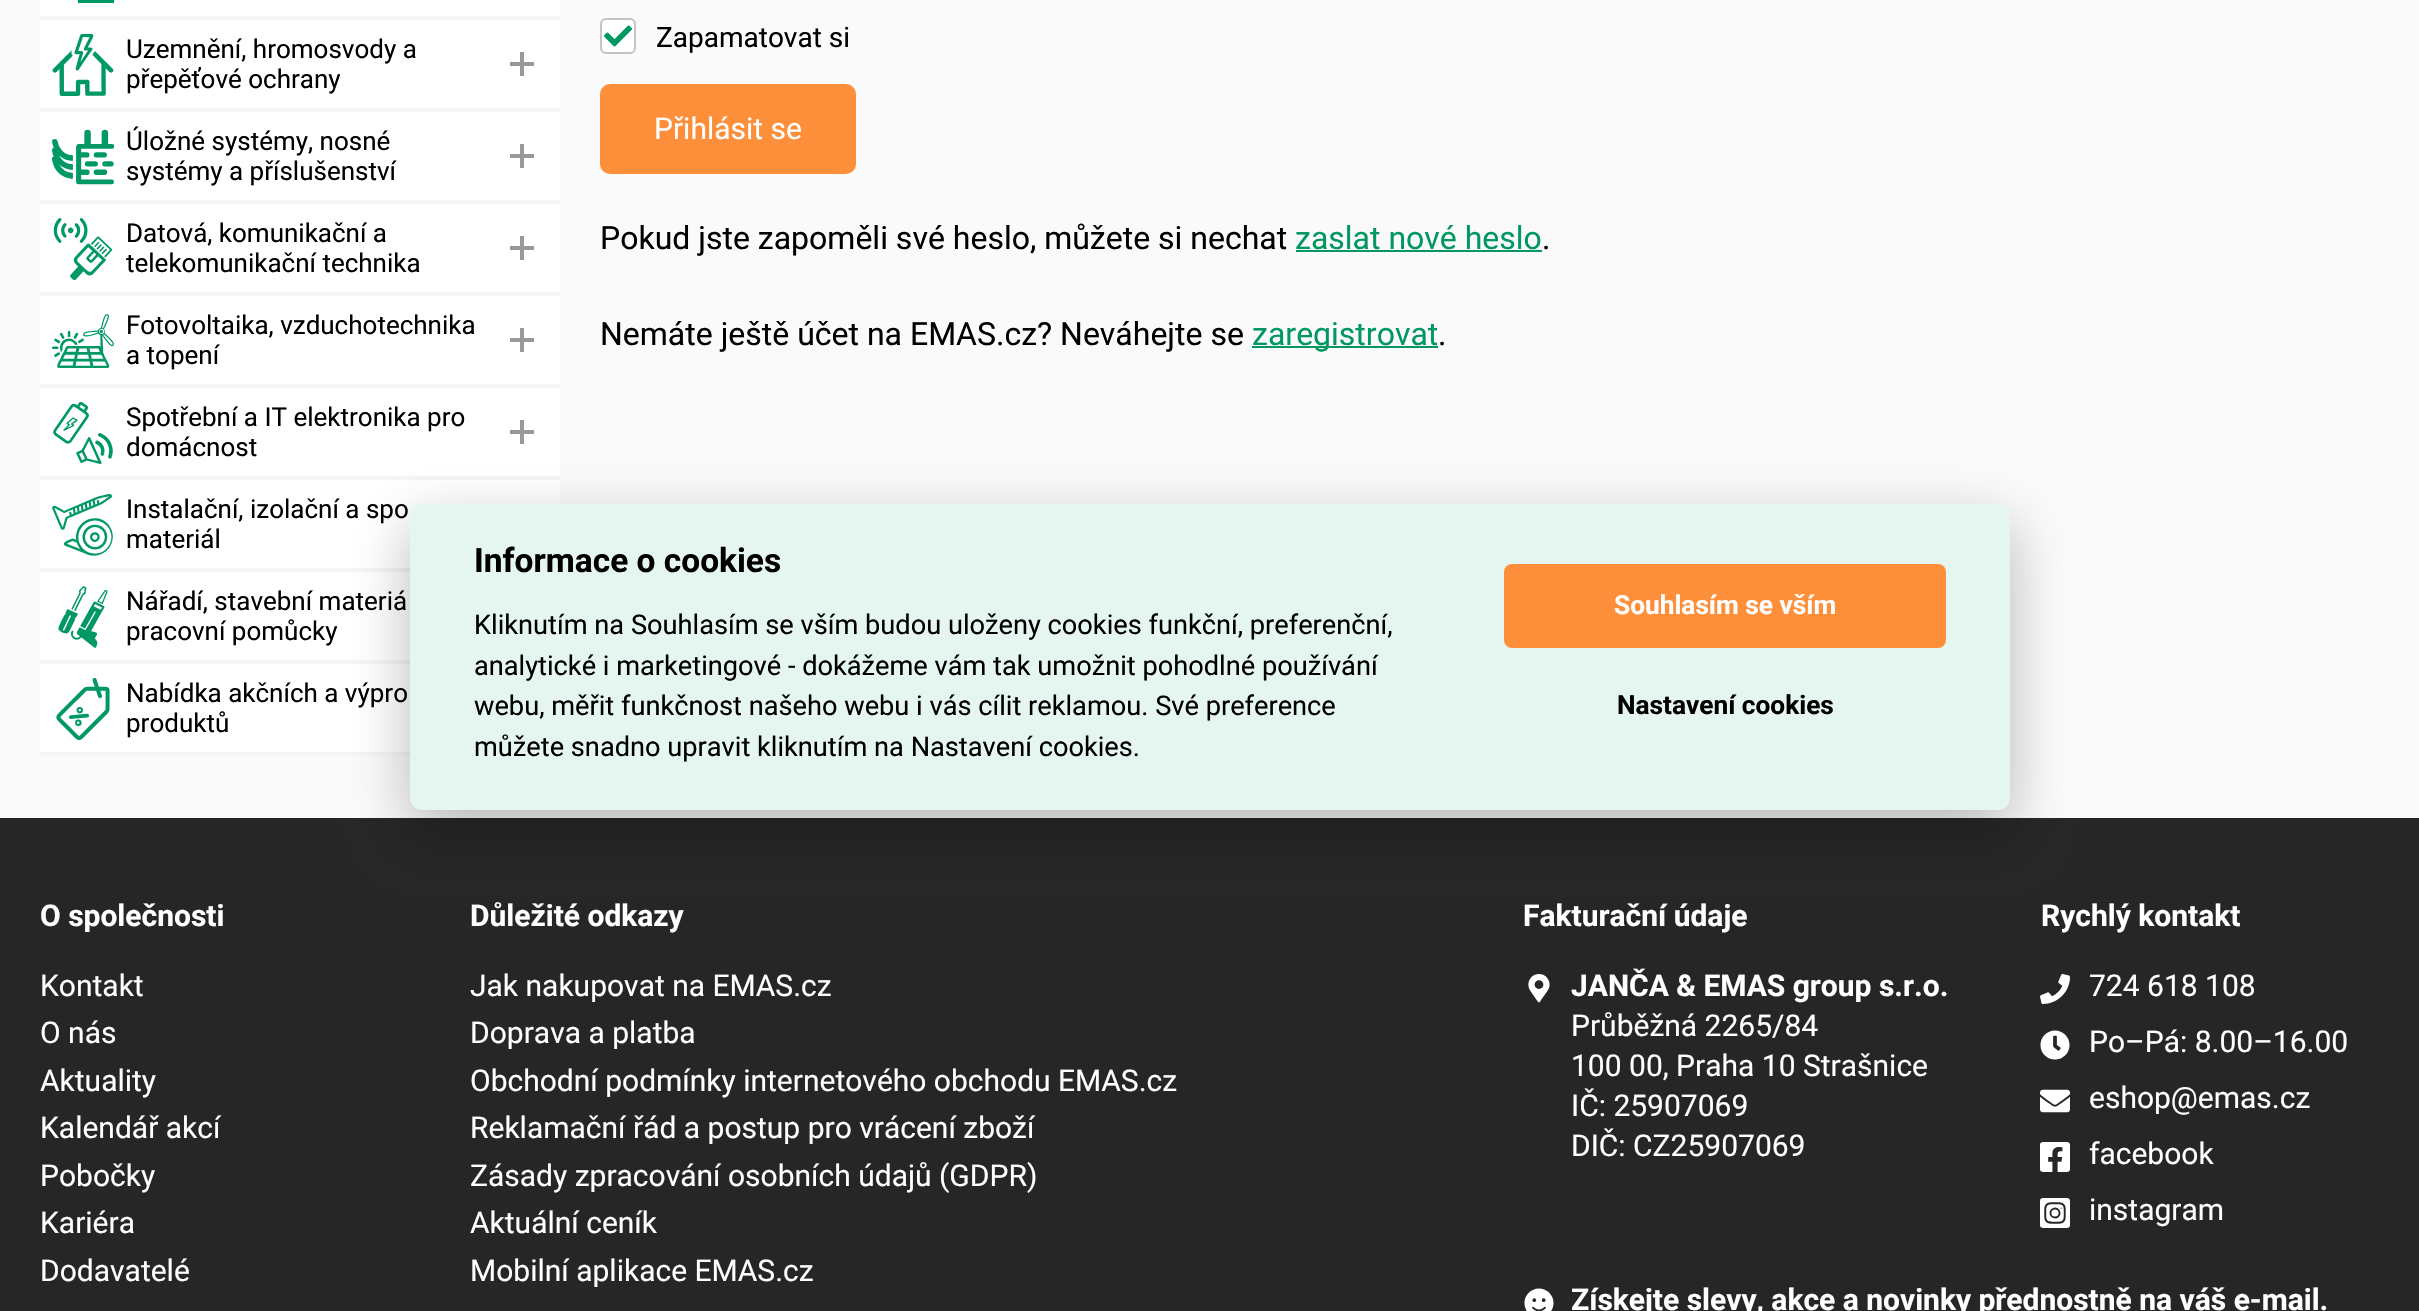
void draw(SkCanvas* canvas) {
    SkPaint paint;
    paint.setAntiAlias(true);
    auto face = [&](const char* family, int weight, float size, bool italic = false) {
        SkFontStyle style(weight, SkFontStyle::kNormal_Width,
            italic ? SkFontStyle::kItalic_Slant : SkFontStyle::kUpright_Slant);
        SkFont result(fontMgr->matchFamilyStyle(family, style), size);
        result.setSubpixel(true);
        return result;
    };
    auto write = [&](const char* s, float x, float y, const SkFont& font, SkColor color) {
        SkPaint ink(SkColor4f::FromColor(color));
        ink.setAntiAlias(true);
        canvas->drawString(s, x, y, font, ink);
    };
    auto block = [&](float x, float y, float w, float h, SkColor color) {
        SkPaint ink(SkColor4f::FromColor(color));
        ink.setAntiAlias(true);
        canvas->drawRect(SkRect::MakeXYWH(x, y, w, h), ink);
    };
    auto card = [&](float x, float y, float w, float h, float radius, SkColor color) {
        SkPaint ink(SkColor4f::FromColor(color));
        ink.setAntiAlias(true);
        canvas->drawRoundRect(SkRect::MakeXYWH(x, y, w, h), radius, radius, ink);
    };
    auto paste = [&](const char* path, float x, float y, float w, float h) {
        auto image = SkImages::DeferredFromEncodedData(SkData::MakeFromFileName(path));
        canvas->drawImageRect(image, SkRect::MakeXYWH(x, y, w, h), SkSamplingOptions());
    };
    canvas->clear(SkColorSetRGB(250, 250, 250));
    block(40, 0, 520, 752, SK_ColorWHITE);
    block(40, 16, 520, 4, SkColorSetRGB(245, 245, 245));
    block(78, 0, 36, 3, SkColorSetRGB(0, 153, 102));
    block(40, 108, 520, 4, SkColorSetRGB(245, 245, 245));
    paste("pic1.png", 52, 34, 62, 62);
    auto kFont1 = face("Roboto", 400, 26);
    write("Uzemnění, hromosvody a", 126, 58, kFont1, SK_ColorBLACK);
    write("přepěťové ochrany", 126, 88, kFont1, SK_ColorBLACK);
    block(510, 62, 24, 4, SkColorSetRGB(153, 153, 153));
    block(520, 52, 4, 24, SkColorSetRGB(153, 153, 153));
    block(40, 200, 520, 4, SkColorSetRGB(245, 245, 245));
    paste("pic2.png", 52, 129, 62, 56);
    write("Úložné systémy, nosné", 126, 150, kFont1, SK_ColorBLACK);
    write("systémy a příslušenství", 126, 180, kFont1, SK_ColorBLACK);
    block(510, 154, 24, 4, SkColorSetRGB(153, 153, 153));
    block(520, 144, 4, 24, SkColorSetRGB(153, 153, 153));
    block(40, 292, 520, 4, SkColorSetRGB(245, 245, 245));
    paste("pic3.png", 53, 218, 60, 62);
    write("Datová, komunikační a", 126, 242, kFont1, SK_ColorBLACK);
    write("telekomunikační technika", 126, 272, kFont1, SK_ColorBLACK);
    block(510, 246, 24, 4, SkColorSetRGB(153, 153, 153));
    block(520, 236, 4, 24, SkColorSetRGB(153, 153, 153));
    block(40, 384, 520, 4, SkColorSetRGB(245, 245, 245));
    paste("pic4.png", 52, 314, 62, 54);
    write("Fotovoltaika, vzduchotechnika", 126, 334, kFont1, SK_ColorBLACK);
    write("a topení", 126, 364, kFont1, SK_ColorBLACK);
    block(510, 338, 24, 4, SkColorSetRGB(153, 153, 153));
    block(520, 328, 4, 24, SkColorSetRGB(153, 153, 153));
    block(40, 476, 520, 4, SkColorSetRGB(245, 245, 245));
    paste("pic5.png", 53, 402, 60, 62);
    write("Spotřební a IT elektronika pro", 126, 426, kFont1, SK_ColorBLACK);
    write("domácnost", 126, 456, kFont1, SK_ColorBLACK);
    block(510, 430, 24, 4, SkColorSetRGB(153, 153, 153));
    block(520, 420, 4, 24, SkColorSetRGB(153, 153, 153));
    block(40, 568, 370, 4, SkColorSetRGB(245, 245, 245));
    paste("pic6.png", 52, 494, 61, 62);
    write("Instalační, izolační a spo", 126, 518, kFont1, SK_ColorBLACK);
    write("materiál", 126, 548, kFont1, SK_ColorBLACK);
    block(40, 660, 370, 4, SkColorSetRGB(245, 245, 245));
    paste("pic7.png", 58, 586, 50, 62);
    write("Nářadí, stavební materiá", 126, 610, kFont1, SK_ColorBLACK);
    write("pracovní pomůcky", 126, 640, kFont1, SK_ColorBLACK);
    block(40, 752, 370, 4, SkColorSetRGB(245, 245, 245));
    paste("pic8.png", 56, 678, 54, 62);
    write("Nabídka akčních a výpro", 126, 702, kFont1, SK_ColorBLACK);
    write("produktů", 126, 732, kFont1, SK_ColorBLACK);
    paint.setColor(SK_ColorWHITE);
    canvas->drawRoundRect(SkRect::MakeXYWH(601, 19, 34, 34), 5, 5, paint);
    paint.setStyle(SkPaint::kStroke_Style);
    paint.setStrokeWidth(2);
    paint.setColor(SkColorSetRGB(196, 196, 196));
    canvas->drawRoundRect(SkRect::MakeXYWH(601, 19, 34, 34), 5, 5, paint);
    paste("pic9.png", 604, 25, 28, 22);
    auto kFont2 = face("Roboto", 400, 28);
    write("Zapamatovat si", 656, 47, kFont2, SK_ColorBLACK);
    paint.setStyle(SkPaint::kFill_Style);
    paint.setColor(SkColorSetRGB(254, 143, 58));
    canvas->drawRoundRect(SkRect::MakeXYWH(601, 85, 254, 88), 9, 9, paint);
    paint.setStyle(SkPaint::kStroke_Style);
    canvas->drawRoundRect(SkRect::MakeXYWH(601, 85, 254, 88), 9, 9, paint);
    auto kFont3 = face("Roboto", 400, 30);
    write("Přihlásit se", 654, 139, kFont3, SK_ColorWHITE);
    auto kFont4 = face("Roboto", 400, 32);
    write("Pokud jste zapoměli své heslo, můžete si nechat", 600, 249, kFont4, SK_ColorBLACK);
    write("zaslat nové heslo", 1295, 249, kFont4, SkColorSetRGB(0, 151, 96));
    block(1296, 250, 246, 2, SkColorSetRGB(0, 151, 96));
    write(".", 1542, 249, kFont4, SK_ColorBLACK);
    write("Nemáte ještě účet na EMAS.cz? Neváhejte se", 600, 345, kFont4, SK_ColorBLACK);
    block(1252, 346, 186, 2, SkColorSetRGB(0, 151, 96));
    write("zaregistrovat", 1252, 345, kFont4, SkColorSetRGB(0, 151, 96));
    write(".", 1438, 345, kFont4, SK_ColorBLACK);
    block(0, 818, 2419, 493, SkColorSetRGB(38, 38, 38));
    auto kFont5 = face("Roboto", 700, 30);
    write("O společnosti", 40, 926, kFont5, SK_ColorWHITE);
    write("Kontakt", 40, 996, kFont3, SK_ColorWHITE);
    write("O nás", 40, 1043, kFont3, SK_ColorWHITE);
    write("Aktuality", 40, 1091, kFont3, SK_ColorWHITE);
    write("Kalendář akcí", 40, 1138, kFont3, SK_ColorWHITE);
    write("Pobočky", 40, 1186, kFont3, SK_ColorWHITE);
    write("Kariéra", 40, 1233, kFont3, SK_ColorWHITE);
    write("Dodavatelé", 40, 1281, kFont3, SK_ColorWHITE);
    write("Důležité odkazy", 470, 926, kFont5, SK_ColorWHITE);
    write("Jak nakupovat na EMAS.cz", 470, 996, kFont3, SK_ColorWHITE);
    write("Doprava a platba", 470, 1043, kFont3, SK_ColorWHITE);
    write("Obchodní podmínky internetového obchodu EMAS.cz", 470, 1091, kFont3, SK_ColorWHITE);
    write("Reklamační řád a postup pro vrácení zboží", 470, 1138, kFont3, SK_ColorWHITE);
    write("Zásady zpracování osobních údajů (GDPR)", 470, 1186, kFont3, SK_ColorWHITE);
    write("Aktuální ceník", 470, 1233, kFont3, SK_ColorWHITE);
    write("Mobilní aplikace EMAS.cz", 470, 1281, kFont3, SK_ColorWHITE);
    write("Fakturační údaje", 1523, 926, kFont5, SK_ColorWHITE);
    paste("pic10.png", 1528, 974, 22, 29);
    write("JANČA & EMAS group s.r.o.", 1571, 996, kFont5, SK_ColorWHITE);
    write("Průběžná 2265/84", 1571, 1036, kFont3, SK_ColorWHITE);
    write("100 00, Praha 10 Strašnice", 1571, 1076, kFont3, SK_ColorWHITE);
    write("IČ: 25907069", 1571, 1116, kFont3, SK_ColorWHITE);
    write("DIČ: CZ25907069", 1571, 1156, kFont3, SK_ColorWHITE);
    write("Rychlý kontakt", 2041, 926, kFont5, SK_ColorWHITE);
    paste("pic11.png", 2040, 974, 30, 30);
    write("724 618 108", 2089, 996, kFont3, SK_ColorWHITE);
    paste("pic12.png", 2040, 1030, 30, 30);
    write("Po–Pá: 8.00–16.00", 2089, 1052, kFont3, SK_ColorWHITE);
    paste("pic13.png", 2040, 1089, 30, 24);
    write("eshop@emas.cz", 2089, 1108, kFont3, SK_ColorWHITE);
    paste("pic14.png", 2040, 1142, 30, 30);
    write("facebook", 2089, 1164, kFont3, SK_ColorWHITE);
    paste("pic15.png", 2040, 1198, 30, 30);
    write("instagram", 2089, 1220, kFont3, SK_ColorWHITE);
    paste("pic16.png", 1524, 1288, 30, 23);
    write("Získejte slevy, akce a novinky přednostně na váš e-mail.", 1571, 1310, kFont5, SK_ColorWHITE);
    paint.setStyle(SkPaint::kFill_Style);
    paint.setColor(SkColorSetARGB(71, 2, 2, 3));
    paint.setMaskFilter(SkMaskFilter::MakeBlur(kNormal_SkBlurStyle, 30));
    canvas->drawRoundRect(SkRect::MakeXYWH(410, 524, 1600, 306), 12, 12, paint);
    paint.setMaskFilter(nullptr);
    card(410, 504, 1600, 306, 12, SkColorSetRGB(229, 246, 240));
    auto kFont6 = face("Roboto", 700, 33.5f);
    write("Informace o cookies", 474, 572, kFont6, SK_ColorBLACK);
    auto kFont7 = face("Roboto", 400, 27.2f);
    write("Kliknutím na Souhlasím se vším budou uloženy cookies funkční, preferenční,", 474, 634, kFont7, SK_ColorBLACK);
    write("analytické i marketingové - dokážeme vám tak umožnit pohodlné používání", 474, 675, kFont7, SK_ColorBLACK);
    write("webu, měřit funkčnost našeho webu i vás cílit reklamou. Své preference", 474, 715, kFont7, SK_ColorBLACK);
    write("můžete snadno upravit kliknutím na Nastavení cookies.", 474, 756, kFont7, SK_ColorBLACK);
    card(1504, 564, 442, 84, 8, SkColorSetRGB(254, 143, 58));
    auto kFont8 = face("Roboto", 700, 26.25f);
    write("Souhlasím se vším", 1614, 614, kFont8, SK_ColorWHITE);
    write("Nastavení cookies", 1617, 714, kFont8, SK_ColorBLACK);
}
